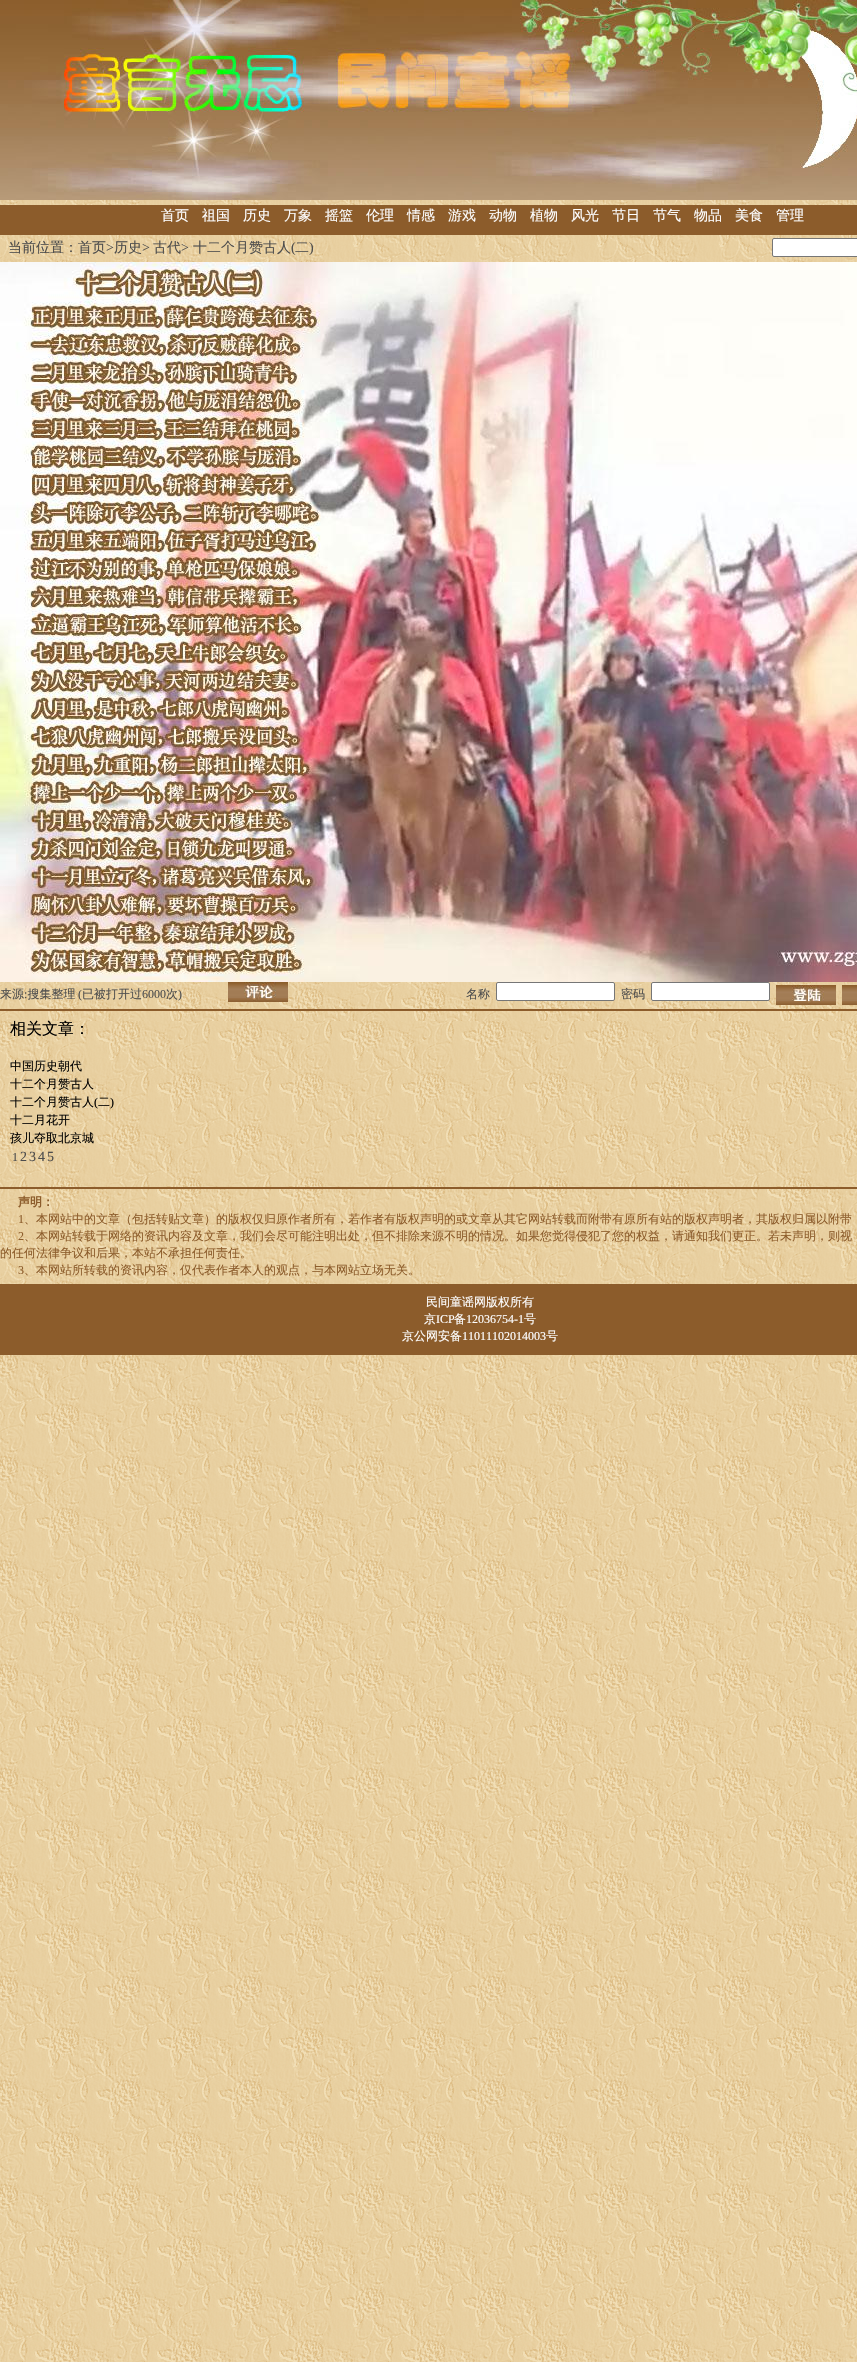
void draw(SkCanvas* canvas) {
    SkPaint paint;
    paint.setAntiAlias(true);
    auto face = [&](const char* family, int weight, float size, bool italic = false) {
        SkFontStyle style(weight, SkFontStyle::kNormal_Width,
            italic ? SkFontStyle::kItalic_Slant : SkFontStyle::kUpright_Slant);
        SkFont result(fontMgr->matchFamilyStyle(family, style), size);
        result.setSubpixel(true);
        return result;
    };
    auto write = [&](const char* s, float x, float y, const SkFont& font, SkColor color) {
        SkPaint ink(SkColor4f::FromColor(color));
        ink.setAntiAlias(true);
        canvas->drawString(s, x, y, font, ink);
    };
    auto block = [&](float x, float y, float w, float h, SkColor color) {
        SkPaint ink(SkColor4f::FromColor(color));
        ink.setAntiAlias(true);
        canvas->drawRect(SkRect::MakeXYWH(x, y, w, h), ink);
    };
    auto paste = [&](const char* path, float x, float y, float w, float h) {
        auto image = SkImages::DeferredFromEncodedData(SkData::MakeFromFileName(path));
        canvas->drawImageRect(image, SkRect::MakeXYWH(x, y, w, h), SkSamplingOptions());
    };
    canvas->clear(SK_ColorWHITE);
    paste("pic1.png", 0, 200, 857, 2162);
    paste("pic2.png", 0, 0, 857, 200);
    block(0, 205, 857, 30, SkColorSetRGB(140, 92, 43));
    auto kFont1 = face("WenQuanYi Zen Hei", 500, 14);
    write("首页", 161, 220, kFont1, SkColorSetRGB(254, 254, 255));
    write("祖国", 202, 220, kFont1, SkColorSetRGB(254, 254, 255));
    write("历史", 243, 220, kFont1, SkColorSetRGB(254, 254, 255));
    write("万象", 284, 220, kFont1, SkColorSetRGB(254, 254, 255));
    write("摇篮", 325, 220, kFont1, SkColorSetRGB(254, 254, 255));
    write("伦理", 366, 220, kFont1, SkColorSetRGB(254, 254, 255));
    write("情感", 407, 220, kFont1, SkColorSetRGB(254, 254, 255));
    write("游戏", 448, 220, kFont1, SkColorSetRGB(254, 254, 255));
    write("动物", 489, 220, kFont1, SkColorSetRGB(254, 254, 255));
    write("植物", 530, 220, kFont1, SkColorSetRGB(254, 254, 255));
    write("风光", 571, 220, kFont1, SkColorSetRGB(254, 254, 255));
    write("节日", 612, 220, kFont1, SkColorSetRGB(254, 254, 255));
    write("节气", 653, 220, kFont1, SkColorSetRGB(254, 254, 255));
    write("物品", 694, 220, kFont1, SkColorSetRGB(254, 254, 255));
    write("美食", 735, 220, kFont1, SkColorSetRGB(254, 254, 255));
    write("管理", 776, 220, kFont1, SkColorSetRGB(254, 254, 255));
    write("当前位置：首页", 8, 252, kFont1, SkColorSetRGB(77, 77, 77));
    auto kFont2 = face("Liberation Serif", 400, 14);
    write(">", 106, 252, kFont2, SkColorSetRGB(77, 77, 77));
    write("历史", 114, 252, kFont1, SkColorSetRGB(77, 77, 77));
    write(">", 142, 252, kFont2, SkColorSetRGB(77, 77, 77));
    write("古代", 153, 252, kFont1, SkColorSetRGB(77, 77, 77));
    write(">", 181, 252, kFont2, SkColorSetRGB(77, 77, 77));
    write("十二个月赞古人", 193, 252, kFont1, SkColorSetRGB(77, 77, 77));
    write("(", 291, 252, kFont2, SkColorSetRGB(77, 77, 77));
    write("二", 295, 252, kFont1, SkColorSetRGB(77, 77, 77));
    write(")", 309, 252, kFont2, SkColorSetRGB(77, 77, 77));
    paint.setColor(SK_ColorWHITE);
    canvas->drawRoundRect(SkRect::MakeXYWH(772.5f, 238.5f, 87, 18), 1.5f, 1.5f, paint);
    paint.setStyle(SkPaint::kStroke_Style);
    paint.setStrokeWidth(1);
    paint.setColor(SkColorSetRGB(118, 118, 118));
    canvas->drawRoundRect(SkRect::MakeXYWH(772.5f, 238.5f, 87, 18), 1.5f, 1.5f, paint);
    block(0, 1009, 857, 2, SkColorSetRGB(140, 92, 43));
    paste("pic3.png", 0, 262, 857, 720);
    auto kFont3 = face("WenQuanYi Zen Hei", 500, 12);
    write("来源 搜集整理", 0, 998, kFont3, SkColorSetRGB(77, 77, 77));
    auto kFont4 = face("Liberation Serif", 400, 12);
    write("(", 78, 998, kFont4, SkColorSetRGB(77, 77, 77));
    write("已被打开过", 82, 998, kFont3, SkColorSetRGB(77, 77, 77));
    write("6000", 142, 998, kFont4, SkColorSetRGB(77, 77, 77));
    write("次", 166, 998, kFont3, SkColorSetRGB(77, 77, 77));
    write(")", 178, 998, kFont4, SkColorSetRGB(77, 77, 77));
    write(":", 24, 998, kFont4, SkColorSetRGB(77, 77, 77));
    paste("pic4.png", 228, 982, 60, 20);
    write("名称", 466, 998, kFont3, SkColorSetRGB(77, 77, 77));
    paint.setStyle(SkPaint::kFill_Style);
    paint.setColor(SK_ColorWHITE);
    canvas->drawRoundRect(SkRect::MakeXYWH(496.5f, 982.5f, 118, 18), 1.5f, 1.5f, paint);
    paint.setStyle(SkPaint::kStroke_Style);
    paint.setColor(SkColorSetRGB(118, 118, 118));
    canvas->drawRoundRect(SkRect::MakeXYWH(496.5f, 982.5f, 118, 18), 1.5f, 1.5f, paint);
    write("密码", 621, 998, kFont3, SkColorSetRGB(77, 77, 77));
    paint.setStyle(SkPaint::kFill_Style);
    paint.setColor(SK_ColorWHITE);
    canvas->drawRoundRect(SkRect::MakeXYWH(651.5f, 982.5f, 118, 18), 1.5f, 1.5f, paint);
    paint.setStyle(SkPaint::kStroke_Style);
    paint.setColor(SkColorSetRGB(118, 118, 118));
    canvas->drawRoundRect(SkRect::MakeXYWH(651.5f, 982.5f, 118, 18), 1.5f, 1.5f, paint);
    paste("pic5.png", 776, 985, 60, 20);
    paste("pic6.png", 842, 985, 15, 20);
    paste("pic7.png", 0, 1021, 857, 263);
    auto kFont5 = face("WenQuanYi Zen Hei", 500, 16);
    write("相关文章：", 10, 1034, kFont5, SK_ColorBLACK);
    write("中国历史朝代", 10, 1070, kFont3, SK_ColorBLACK);
    write("十二个月赞古人", 10, 1088, kFont3, SK_ColorBLACK);
    write("十二个月赞古人", 10, 1106, kFont3, SK_ColorBLACK);
    write("(", 94, 1106, kFont4, SK_ColorBLACK);
    write("二", 98, 1106, kFont3, SK_ColorBLACK);
    write(")", 110, 1106, kFont4, SK_ColorBLACK);
    write("十二月花开", 10, 1124, kFont3, SK_ColorBLACK);
    write("孩儿夺取北京城", 10, 1142, kFont3, SK_ColorBLACK);
    write("1", 12, 1161, kFont4, SkColorSetRGB(77, 77, 77));
    write("2", 20, 1161, kFont2, SkColorSetRGB(77, 77, 77));
    write("3", 29, 1161, kFont2, SkColorSetRGB(77, 77, 77));
    write("4", 38, 1161, kFont2, SkColorSetRGB(77, 77, 77));
    write("5", 47, 1161, kFont2, SkColorSetRGB(77, 77, 77));
    block(0, 1187, 857, 2, SkColorSetRGB(140, 92, 43));
    auto kFont6 = face("WenQuanYi Zen Hei", 700, 12);
    write("声明：", 18, 1206, kFont6, SkColorSetRGB(140, 92, 43));
    write("1", 18, 1223, kFont4, SkColorSetRGB(140, 92, 43));
    write("、本网站中的文章（包括转贴文章）的版权仅归原作者所有，若作者有版权声明的或文章从其它网站转载而附带有原所有站的版权声明者，其版权归属以附带", 24, 1223, kFont3, SkColorSetRGB(140, 92, 43));
    write("2", 18, 1240, kFont4, SkColorSetRGB(140, 92, 43));
    write("、本网站转载于网络的资讯内容及文章，我们会尽可能注明出处，但不排除来源不明的情况。如果您觉得侵犯了您的权益，请通知我们更正。若未声明，则视", 24, 1240, kFont3, SkColorSetRGB(140, 92, 43));
    write("的任何法律争议和后果，本站不承担任何责任。", 0, 1257, kFont3, SkColorSetRGB(140, 92, 43));
    write("3", 18, 1274, kFont4, SkColorSetRGB(140, 92, 43));
    write("、本网站所转载的资讯内容，仅代表作者本人的观点，与本网站立场无关。", 24, 1274, kFont3, SkColorSetRGB(140, 92, 43));
    block(0, 1284, 857, 71, SkColorSetRGB(140, 92, 43));
    write("民间童谣网版权所有", 426, 1306, kFont3, SkColorSetRGB(254, 254, 255));
    write("京", 424, 1323, kFont3, SkColorSetRGB(254, 254, 255));
    write("ICP", 436, 1323, kFont4, SkColorSetRGB(254, 254, 255));
    write("备", 454, 1323, kFont3, SkColorSetRGB(254, 254, 255));
    write("12036754-1", 466, 1323, kFont4, SkColorSetRGB(254, 254, 255));
    write("号", 524, 1323, kFont3, SkColorSetRGB(254, 254, 255));
    write("京公网安备", 402, 1340, kFont3, SkColorSetRGB(254, 254, 255));
    write("11011102014003", 462, 1340, kFont4, SkColorSetRGB(254, 254, 255));
    write("号", 546, 1340, kFont3, SkColorSetRGB(254, 254, 255));
}
